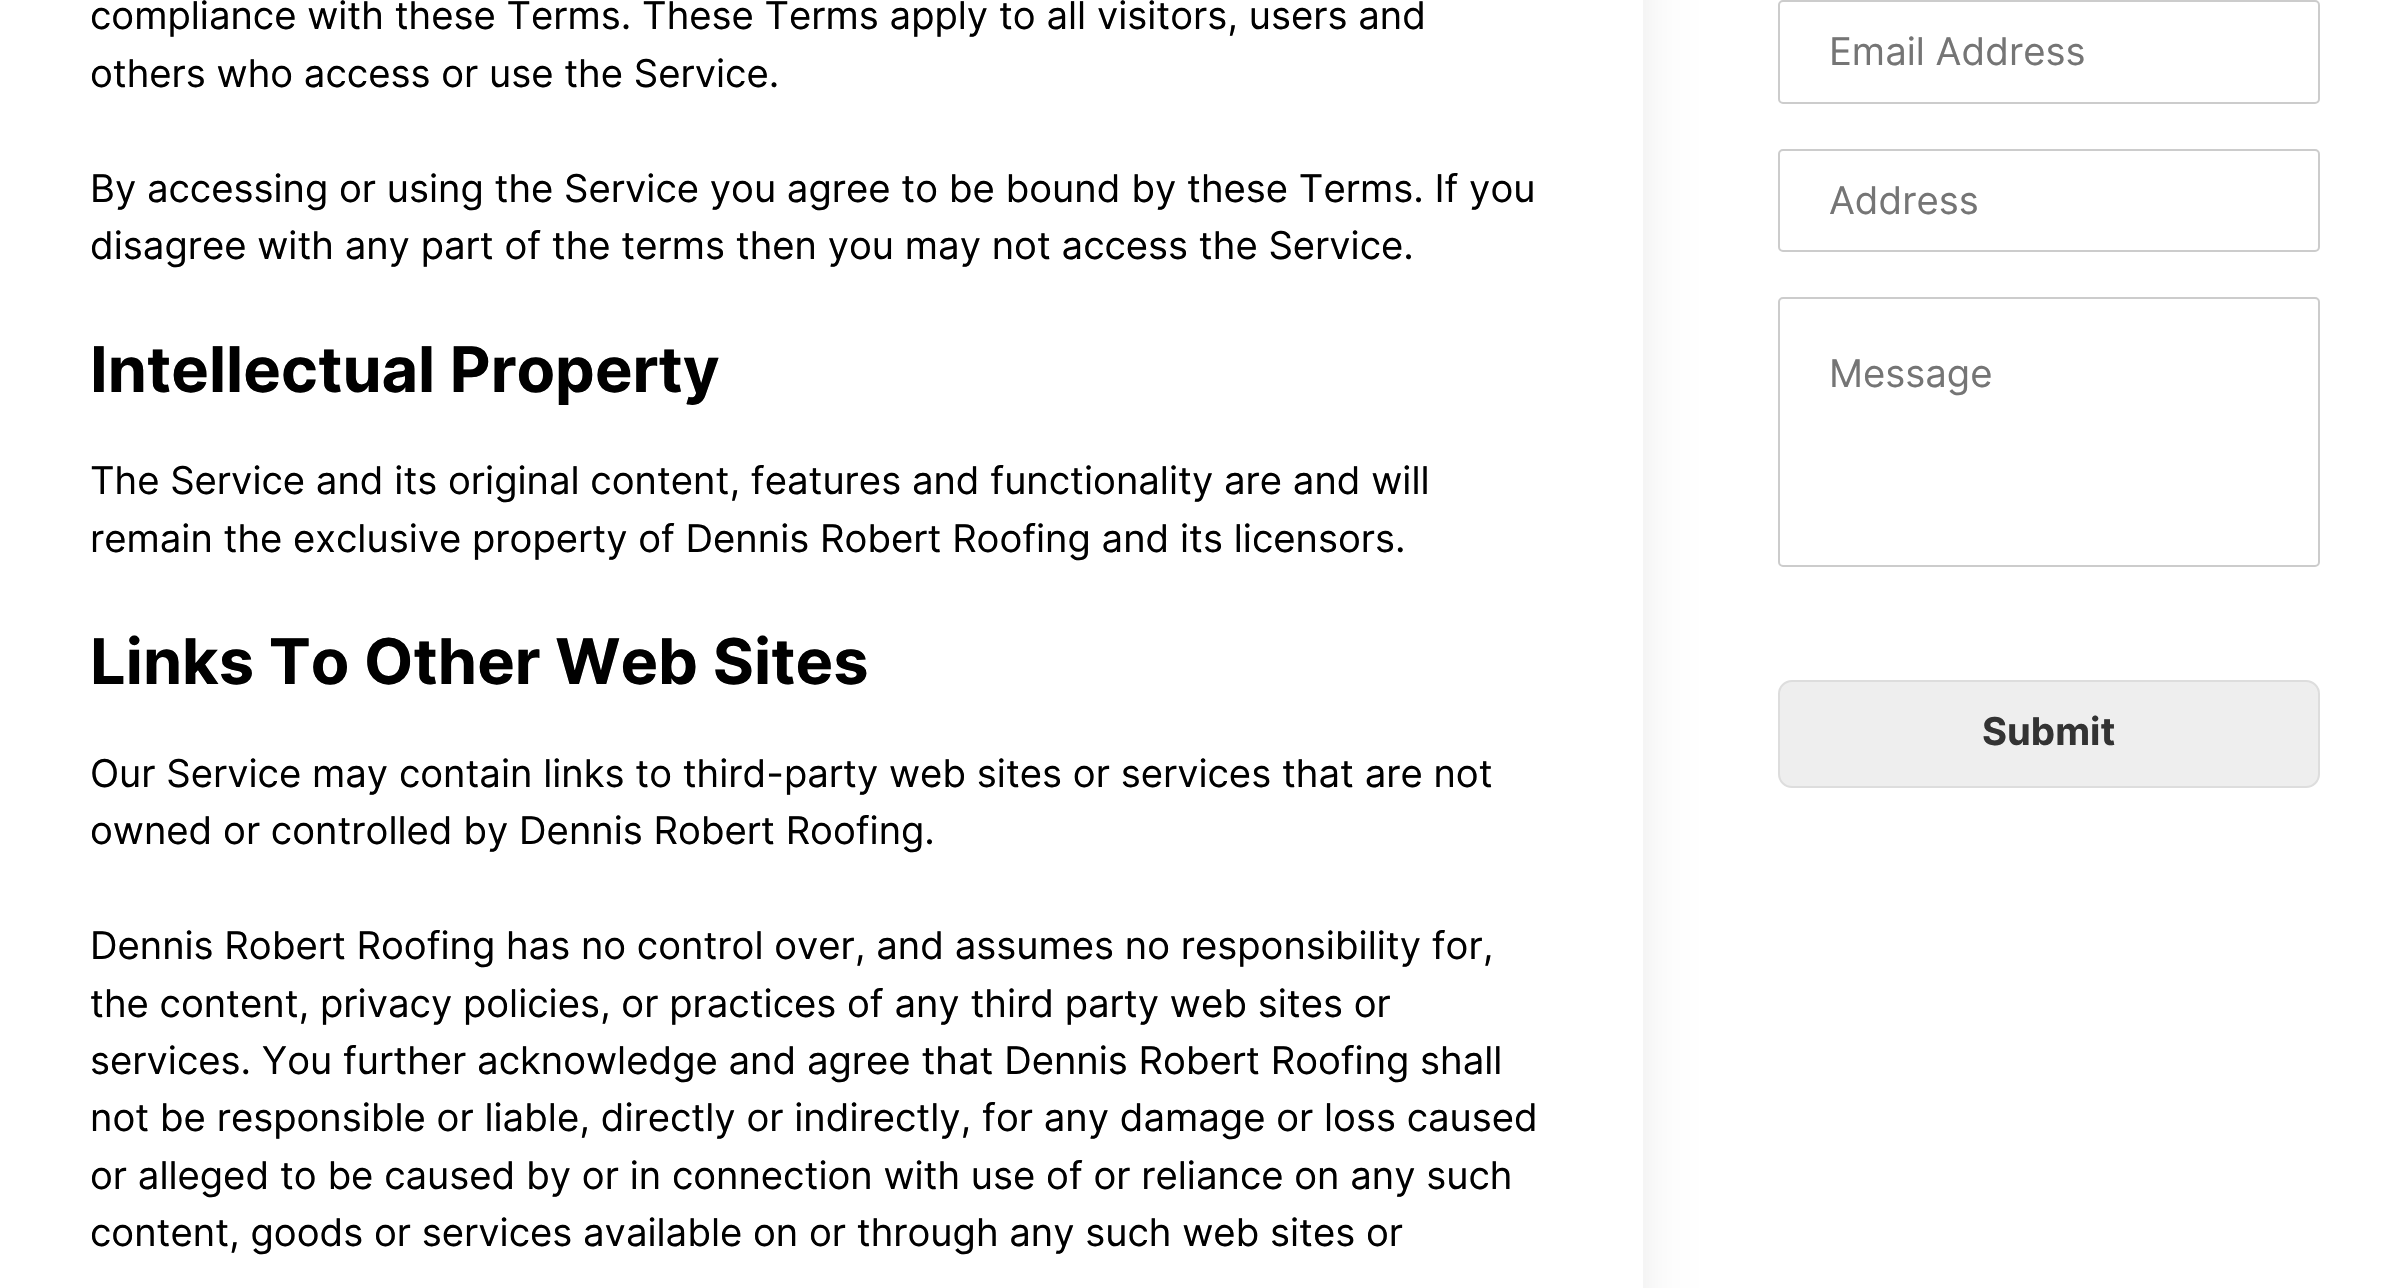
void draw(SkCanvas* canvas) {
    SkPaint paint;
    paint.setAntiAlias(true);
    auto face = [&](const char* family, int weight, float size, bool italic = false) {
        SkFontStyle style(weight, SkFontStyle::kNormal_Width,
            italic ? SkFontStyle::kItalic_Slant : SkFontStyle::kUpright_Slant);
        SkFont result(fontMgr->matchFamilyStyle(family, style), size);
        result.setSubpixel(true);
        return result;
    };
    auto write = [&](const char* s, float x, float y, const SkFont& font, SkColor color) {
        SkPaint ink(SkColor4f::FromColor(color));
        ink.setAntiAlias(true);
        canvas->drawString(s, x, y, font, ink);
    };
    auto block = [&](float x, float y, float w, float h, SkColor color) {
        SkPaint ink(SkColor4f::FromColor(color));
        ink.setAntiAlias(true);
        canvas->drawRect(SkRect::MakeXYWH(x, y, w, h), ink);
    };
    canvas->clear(SK_ColorWHITE);
    paint.setColor(SkColorSetARGB(20, 0, 0, 0));
    paint.setMaskFilter(SkMaskFilter::MakeBlur(kNormal_SkBlurStyle, 23.5f));
    canvas->drawRoundRect(SkRect::MakeXYWH(0, -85, 1643, 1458), 14, 14, paint);
    paint.setMaskFilter(nullptr);
    block(0, 0, 1643, 1288, SK_ColorWHITE);
    auto kFont1 = face("Inter", 400, 38.25f);
    write("compliance with these Terms. These Terms apply to all visitors, users and", 90, 29, kFont1, SK_ColorBLACK);
    write("others who access or use the Service.", 90, 87, kFont1, SK_ColorBLACK);
    write("By accessing or using the Service you agree to be bound by these Terms. If you", 90, 202, kFont1, SK_ColorBLACK);
    write("disagree with any part of the terms then you may not access the Service.", 90, 259, kFont1, SK_ColorBLACK);
    auto kFont2 = face("Inter", 700, 63);
    write("Intellectual Property", 90, 392, kFont2, SK_ColorBLACK);
    write("The Service and its original content, features and functionality are and will", 90, 494, kFont1, SK_ColorBLACK);
    write("remain the exclusive property of Dennis Robert Roofing and its licensors.", 90, 552, kFont1, SK_ColorBLACK);
    write("Links To Other Web Sites", 90, 684, kFont2, SK_ColorBLACK);
    write("Our Service may contain links to third-party web sites or services that are not", 90, 787, kFont1, SK_ColorBLACK);
    write("owned or controlled by Dennis Robert Roofing.", 90, 844, kFont1, SK_ColorBLACK);
    write("Dennis Robert Roofing has no control over, and assumes no responsibility for,", 90, 959, kFont1, SK_ColorBLACK);
    write("the content, privacy policies, or practices of any third party web sites or", 90, 1017, kFont1, SK_ColorBLACK);
    write("services. You further acknowledge and agree that Dennis Robert Roofing shall", 90, 1074, kFont1, SK_ColorBLACK);
    write("not be responsible or liable, directly or indirectly, for any damage or loss caused", 90, 1131, kFont1, SK_ColorBLACK);
    write("or alleged to be caused by or in connection with use of or reliance on any such", 90, 1189, kFont1, SK_ColorBLACK);
    write("content, goods or services available on or through any such web sites or", 90, 1246, kFont1, SK_ColorBLACK);
    paint.setStyle(SkPaint::kStroke_Style);
    paint.setStrokeWidth(2);
    paint.setColor(SkColorSetRGB(204, 204, 204));
    canvas->drawRoundRect(SkRect::MakeXYWH(1779, 1, 540, 102), 4, 4, paint);
    write("Email Address", 1829, 65, kFont1, SkColorSetRGB(117, 117, 117));
    canvas->drawRoundRect(SkRect::MakeXYWH(1779, 150, 540, 101), 4, 4, paint);
    write("Address", 1829, 214, kFont1, SkColorSetRGB(117, 117, 117));
    canvas->drawRoundRect(SkRect::MakeXYWH(1779, 298, 540, 268), 4, 4, paint);
    write("Message", 1829, 387, kFont1, SkColorSetRGB(117, 117, 117));
    paint.setStyle(SkPaint::kFill_Style);
    paint.setColor(SkColorSetRGB(238, 238, 238));
    canvas->drawRoundRect(SkRect::MakeXYWH(1779, 681, 540, 106), 13, 13, paint);
    paint.setStyle(SkPaint::kStroke_Style);
    paint.setColor(SkColorSetRGB(221, 221, 221));
    canvas->drawRoundRect(SkRect::MakeXYWH(1779, 681, 540, 106), 13, 13, paint);
    auto kFont3 = face("Inter", 700, 38.25f);
    write("Submit", 1982, 745, kFont3, SkColorSetRGB(51, 51, 51));
}
